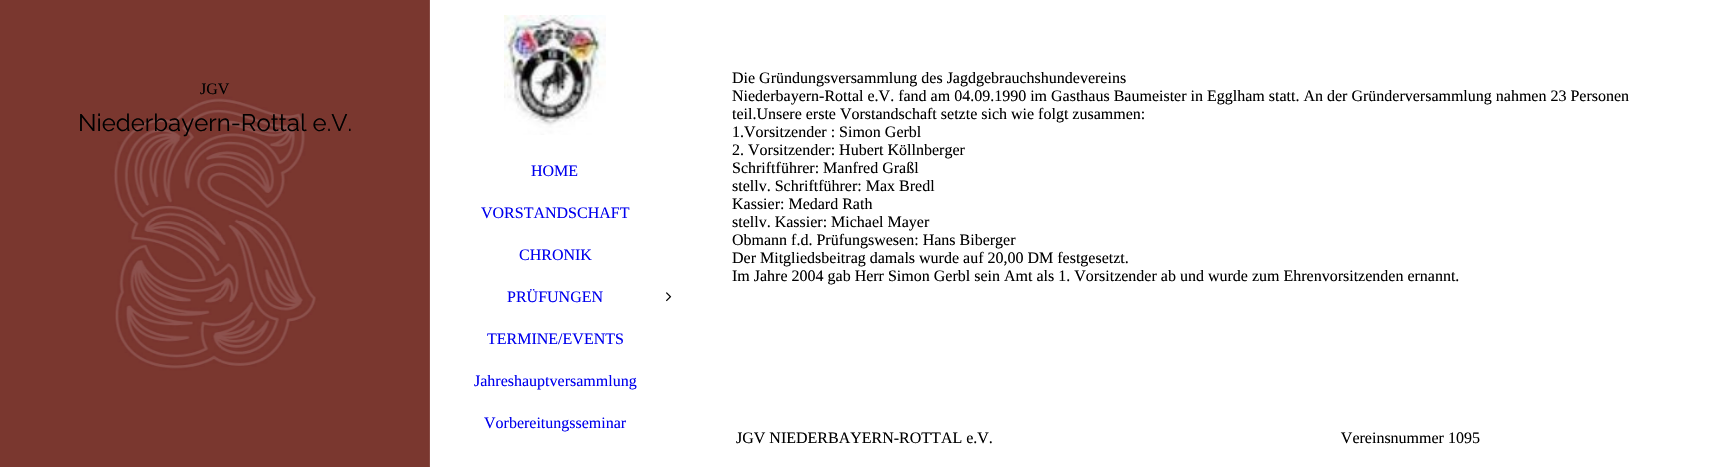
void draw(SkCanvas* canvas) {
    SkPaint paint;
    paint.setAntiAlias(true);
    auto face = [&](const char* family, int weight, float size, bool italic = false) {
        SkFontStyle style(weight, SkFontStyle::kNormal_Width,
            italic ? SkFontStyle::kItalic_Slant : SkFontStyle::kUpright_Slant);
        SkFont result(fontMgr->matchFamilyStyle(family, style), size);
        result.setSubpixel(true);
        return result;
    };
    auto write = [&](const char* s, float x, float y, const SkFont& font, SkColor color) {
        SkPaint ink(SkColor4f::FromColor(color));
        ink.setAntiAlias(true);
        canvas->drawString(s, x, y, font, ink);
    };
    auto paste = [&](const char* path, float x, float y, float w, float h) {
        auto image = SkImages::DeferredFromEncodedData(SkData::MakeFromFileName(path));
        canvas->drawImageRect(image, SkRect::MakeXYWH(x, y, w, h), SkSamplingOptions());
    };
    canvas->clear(SK_ColorWHITE);
    paste("pic1.png", 0, 0, 430, 467);
    auto kFont1 = face("Liberation Serif", 400, 16);
    write("Die Gründungsversammlung des Jagdgebrauchshundevereins", 732, 83, kFont1, SK_ColorBLACK);
    write("Niederbayern-Rottal e.V. fand am 04.09.1990 im Gasthaus Baumeister in Egglham statt. An der Gründerversammlung nahmen 23 Personen", 732, 101, kFont1, SK_ColorBLACK);
    write("teil.Unsere erste Vorstandschaft setzte sich wie folgt zusammen:", 732, 119, kFont1, SK_ColorBLACK);
    write("1.Vorsitzender : Simon Gerbl", 732, 137, kFont1, SK_ColorBLACK);
    write("2. Vorsitzender: Hubert Köllnberger", 732, 155, kFont1, SK_ColorBLACK);
    write("Schriftführer: Manfred Graßl", 732, 173, kFont1, SK_ColorBLACK);
    write("stellv. Schriftführer: Max Bredl", 732, 191, kFont1, SK_ColorBLACK);
    write("Kassier: Medard Rath", 732, 209, kFont1, SK_ColorBLACK);
    write("stellv. Kassier: Michael Mayer", 732, 227, kFont1, SK_ColorBLACK);
    write("Obmann f.d. Prüfungswesen: Hans Biberger", 732, 245, kFont1, SK_ColorBLACK);
    write("Der Mitgliedsbeitrag damals wurde auf 20,00 DM festgesetzt.", 732, 263, kFont1, SK_ColorBLACK);
    write("Im Jahre 2004 gab Herr Simon Gerbl sein Amt als 1. Vorsitzender ab und wurde zum Ehrenvorsitzenden ernannt.", 732, 281, kFont1, SK_ColorBLACK);
    write("JGV NIEDERBAYERN-ROTTAL e.V.                                                                                       Vereinsnummer 1095", 736, 443, kFont1, SK_ColorBLACK);
    write("JGV", 200, 94, kFont1, SK_ColorBLACK);
    auto kFont2 = face("Raleway", 400, 24);
    write("Niederbayern-Rottal e.V.", 78, 131, kFont2, SK_ColorBLACK);
    paste("pic2.png", 504, 15, 102, 120);
    write("HOME", 531, 176, kFont1, SkColorSetRGB(0, 0, 238));
    write("VORSTANDSCHAFT", 481, 218, kFont1, SkColorSetRGB(0, 0, 238));
    write("CHRONIK", 519, 260, kFont1, SkColorSetRGB(0, 0, 238));
    write("PRÜFUNGEN", 507, 302, kFont1, SkColorSetRGB(0, 0, 238));
    paste("pic3.png", 666, 292, 6, 10);
    write("TERMINE/EVENTS", 487, 344, kFont1, SkColorSetRGB(0, 0, 238));
    write("Jahreshauptversammlung", 474, 386, kFont1, SkColorSetRGB(0, 0, 238));
    write("Vorbereitungsseminar", 484, 428, kFont1, SkColorSetRGB(0, 0, 238));
}
